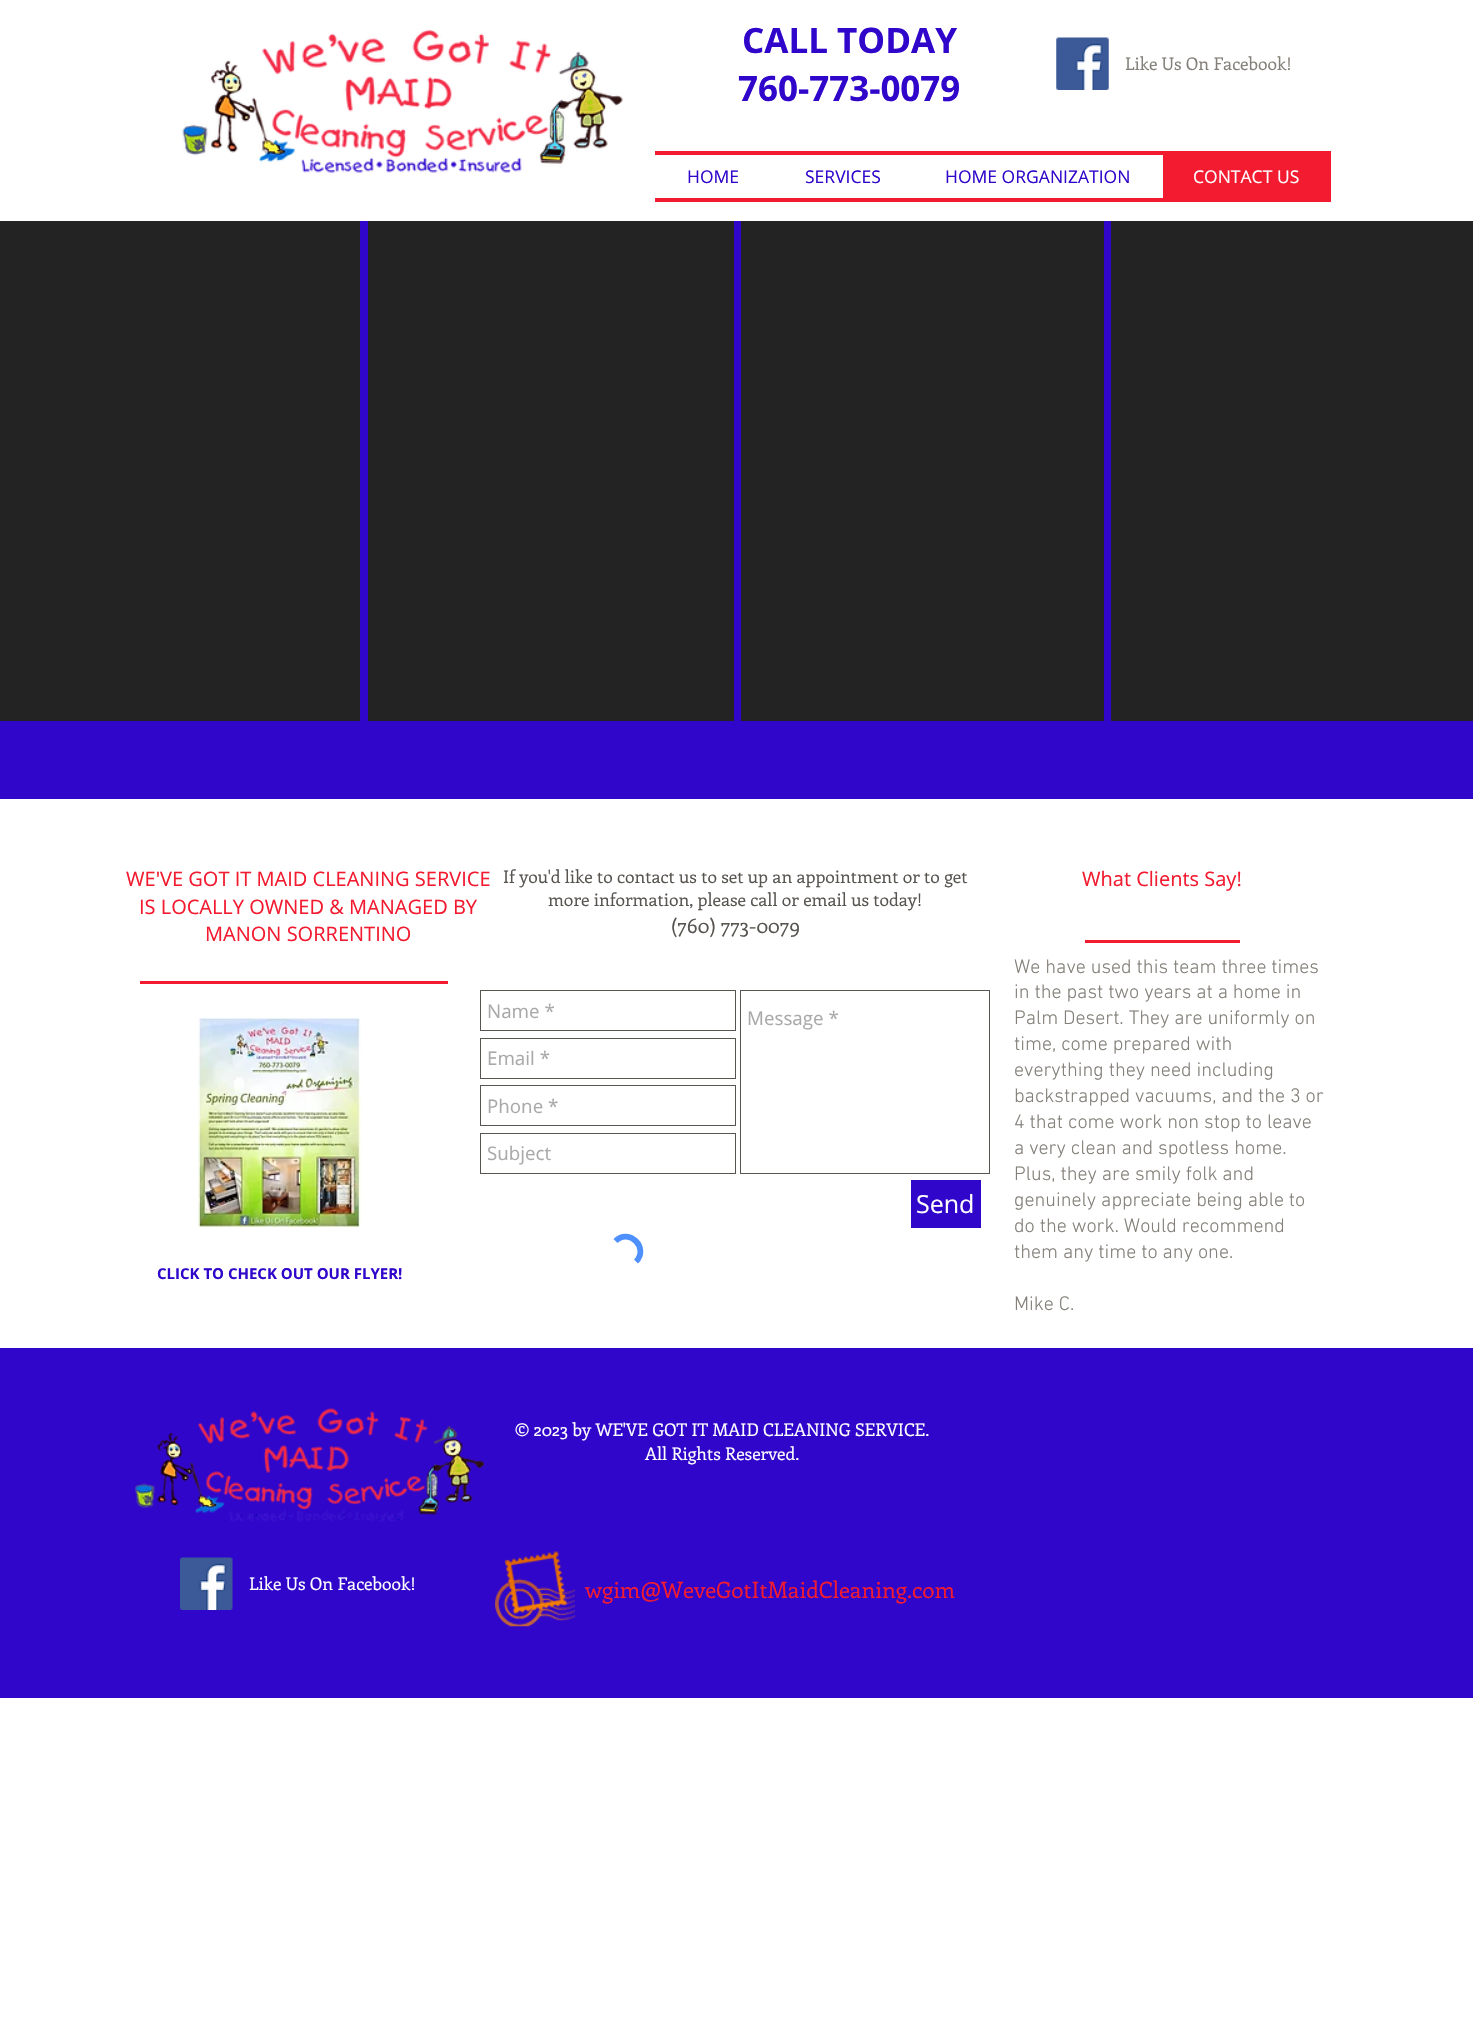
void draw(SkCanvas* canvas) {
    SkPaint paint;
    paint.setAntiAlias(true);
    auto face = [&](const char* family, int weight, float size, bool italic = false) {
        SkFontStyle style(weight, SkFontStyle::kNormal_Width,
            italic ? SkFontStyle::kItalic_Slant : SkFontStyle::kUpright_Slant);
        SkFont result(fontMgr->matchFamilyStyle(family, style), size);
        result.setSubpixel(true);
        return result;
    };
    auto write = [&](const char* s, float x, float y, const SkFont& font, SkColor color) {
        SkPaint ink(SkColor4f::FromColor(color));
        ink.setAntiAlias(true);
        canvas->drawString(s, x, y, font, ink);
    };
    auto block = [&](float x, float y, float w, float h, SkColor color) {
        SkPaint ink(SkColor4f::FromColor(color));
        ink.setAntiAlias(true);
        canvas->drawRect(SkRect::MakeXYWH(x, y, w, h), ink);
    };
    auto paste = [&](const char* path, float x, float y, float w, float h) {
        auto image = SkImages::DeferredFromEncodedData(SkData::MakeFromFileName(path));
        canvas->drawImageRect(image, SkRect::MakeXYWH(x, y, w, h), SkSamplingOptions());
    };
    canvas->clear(SK_ColorWHITE);
    paste("pic1.png", 182, 29, 441, 144);
    auto kFont1 = face("Open Sans", 700, 35);
    write("CALL TODAY", 742, 53, kFont1, SkColorSetRGB(48, 6, 203));
    write("760-773-0079", 738, 101, kFont1, SkColorSetRGB(48, 6, 203));
    paste("pic2.png", 1056, 37, 53, 53);
    auto kFont2 = face("Enriqueta", 400, 17.5f);
    write("Like Us On Facebook!", 1125, 70, kFont2, SkColorSetRGB(132, 128, 121));
    block(655, 151, 676, 4, SkColorSetRGB(242, 27, 48));
    block(655, 198, 676, 4, SkColorSetRGB(242, 27, 48));
    auto kFont3 = face("Open Sans", 400, 17.5f);
    write("HOME", 687, 183, kFont3, SkColorSetRGB(48, 6, 203));
    write("SERVICES", 805, 183, kFont3, SkColorSetRGB(48, 6, 203));
    write("HOME ORGANIZATION", 945, 183, kFont3, SkColorSetRGB(48, 6, 203));
    block(1163, 155, 168, 43, SkColorSetRGB(242, 27, 48));
    write("CONTACT US", 1193, 183, kFont3, SK_ColorWHITE);
    block(0, 221, 360, 500, SkColorSetRGB(36, 35, 35));
    block(360, 221, 751, 500, SkColorSetRGB(48, 6, 203));
    block(368, 221, 366, 500, SkColorSetRGB(36, 35, 35));
    block(741, 221, 363, 500, SkColorSetRGB(36, 35, 35));
    block(1111, 221, 362, 500, SkColorSetRGB(36, 35, 35));
    block(0, 721, 1473, 78, SkColorSetRGB(48, 6, 203));
    auto kFont4 = face("Open Sans", 400, 20);
    write("WE'VE GOT IT MAID CLEANING SERVICE", 126, 886, kFont4, SkColorSetRGB(242, 27, 48));
    write("IS LOCALLY OWNED & MANAGED BY", 139, 914, kFont4, SkColorSetRGB(242, 27, 48));
    write("MANON SORRENTINO", 205, 941, kFont4, SkColorSetRGB(242, 27, 48));
    write("If you'd like to contact us to set up an appointment or to get", 503, 883, kFont2, SkColorSetRGB(88, 85, 81));
    write("more information, please call or email us today!", 548, 906, kFont2, SkColorSetRGB(88, 85, 81));
    auto kFont5 = face("Enriqueta", 400, 20);
    write("(760) 773-0079", 671, 933, kFont5, SkColorSetRGB(88, 85, 81));
    write("What Clients Say!", 1082, 886, kFont4, SkColorSetRGB(242, 27, 48));
    block(1085, 940, 155, 3, SkColorSetRGB(242, 27, 48));
    block(140, 981, 308, 3, SkColorSetRGB(242, 27, 48));
    auto kFont6 = face("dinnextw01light", 300, 20);
    write("We have used this team three times", 1014, 973, kFont6, SkColorSetRGB(132, 128, 121));
    write("in the past two years at a home in", 1014, 998, kFont6, SkColorSetRGB(132, 128, 121));
    write("Palm Desert. They are uniformly on", 1014, 1024, kFont6, SkColorSetRGB(132, 128, 121));
    write("time, come prepared with", 1014, 1050, kFont6, SkColorSetRGB(132, 128, 121));
    write("everything they need including", 1014, 1076, kFont6, SkColorSetRGB(132, 128, 121));
    write("backstrapped vacuums, and the 3 or", 1014, 1102, kFont6, SkColorSetRGB(132, 128, 121));
    write("4 that come work non stop to leave", 1014, 1128, kFont6, SkColorSetRGB(132, 128, 121));
    write("a very clean and spotless home.", 1014, 1154, kFont6, SkColorSetRGB(132, 128, 121));
    write("Plus, they are smily folk and", 1014, 1180, kFont6, SkColorSetRGB(132, 128, 121));
    write("genuinely appreciate being able to", 1014, 1206, kFont6, SkColorSetRGB(132, 128, 121));
    write("do the work. Would recommend", 1014, 1232, kFont6, SkColorSetRGB(132, 128, 121));
    write("them any time to any one.", 1014, 1258, kFont6, SkColorSetRGB(132, 128, 121));
    write("Mike C.", 1014, 1310, kFont6, SkColorSetRGB(132, 128, 121));
    paste("pic3.png", 198, 1017, 163, 211);
    paint.setStyle(SkPaint::kStroke_Style);
    paint.setStrokeWidth(1);
    paint.setColor(SkColorSetRGB(88, 85, 81));
    canvas->drawRect(SkRect::MakeXYWH(480.5f, 990.5f, 255, 40), paint);
    auto kFont7 = face("Open Sans", 400, 18.75f);
    write("Name *", 487, 1018, kFont7, SkColorSetRGB(169, 169, 169));
    canvas->drawRect(SkRect::MakeXYWH(740.5f, 990.5f, 249, 183), paint);
    write("Message *", 747, 1025, kFont7, SkColorSetRGB(169, 169, 169));
    canvas->drawRect(SkRect::MakeXYWH(480.5f, 1038.5f, 255, 40), paint);
    write("Email *", 487, 1065, kFont7, SkColorSetRGB(169, 169, 169));
    canvas->drawRect(SkRect::MakeXYWH(480.5f, 1085.5f, 255, 40), paint);
    write("Phone *", 487, 1113, kFont7, SkColorSetRGB(169, 169, 169));
    canvas->drawRect(SkRect::MakeXYWH(480.5f, 1133.5f, 255, 40), paint);
    write("Subject", 487, 1160, kFont7, SkColorSetRGB(169, 169, 169));
    block(911, 1180, 70, 48, SkColorSetRGB(48, 6, 203));
    auto kFont8 = face("Open Sans", 400, 25);
    write("Send", 916, 1213, kFont8, SK_ColorWHITE);
    paint.setStrokeWidth(5.8f);
    paint.setColor(SkColorSetRGB(77, 144, 254));
    canvas->drawPath(SkPathBuilder().moveTo(615.5f, 1241).cubicTo(629, 1227.5f, 649.5f, 1248, 636, 1261.5f).detach(), paint);
    auto kFont9 = face("Open Sans", 700, 15);
    write("CLICK TO CHECK OUT OUR FLYER!", 157, 1279, kFont9, SkColorSetRGB(48, 6, 203));
    block(0, 1348, 1473, 350, SkColorSetRGB(48, 6, 203));
    paste("pic4.png", 135, 1407, 350, 115);
    write("© 2023 by WE'VE GOT IT MAID CLEANING SERVICE.", 515, 1436, kFont2, SK_ColorWHITE);
    write("All Rights Reserved.", 645, 1460, kFont2, SK_ColorWHITE);
    paste("pic5.png", 180, 1557, 53, 53);
    write("Like Us On Facebook!", 249, 1590, kFont2, SK_ColorWHITE);
    paste("pic6.png", 495, 1551, 80, 76);
    auto kFont10 = face("Enriqueta", 400, 22.5f);
    write("wgim@WeveGotItMaidCleaning.com", 585, 1598, kFont10, SkColorSetRGB(242, 27, 48));
}
